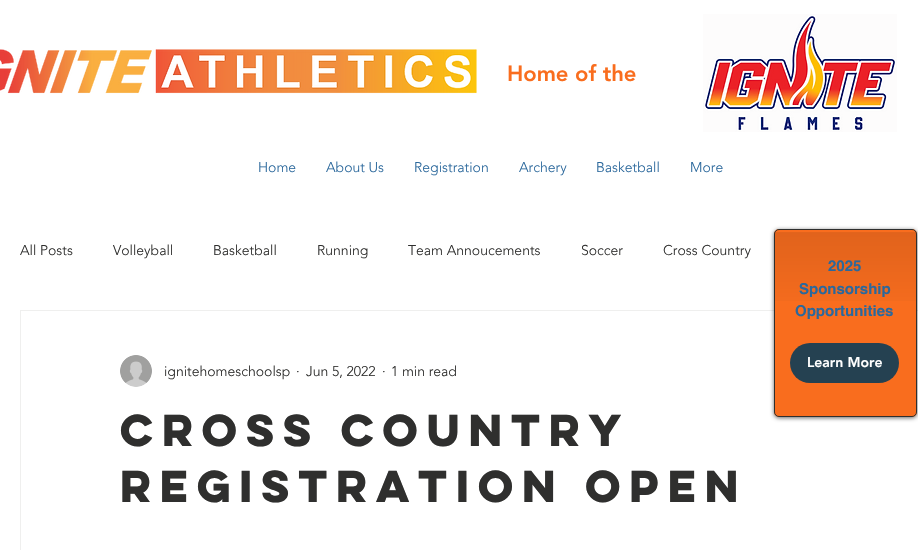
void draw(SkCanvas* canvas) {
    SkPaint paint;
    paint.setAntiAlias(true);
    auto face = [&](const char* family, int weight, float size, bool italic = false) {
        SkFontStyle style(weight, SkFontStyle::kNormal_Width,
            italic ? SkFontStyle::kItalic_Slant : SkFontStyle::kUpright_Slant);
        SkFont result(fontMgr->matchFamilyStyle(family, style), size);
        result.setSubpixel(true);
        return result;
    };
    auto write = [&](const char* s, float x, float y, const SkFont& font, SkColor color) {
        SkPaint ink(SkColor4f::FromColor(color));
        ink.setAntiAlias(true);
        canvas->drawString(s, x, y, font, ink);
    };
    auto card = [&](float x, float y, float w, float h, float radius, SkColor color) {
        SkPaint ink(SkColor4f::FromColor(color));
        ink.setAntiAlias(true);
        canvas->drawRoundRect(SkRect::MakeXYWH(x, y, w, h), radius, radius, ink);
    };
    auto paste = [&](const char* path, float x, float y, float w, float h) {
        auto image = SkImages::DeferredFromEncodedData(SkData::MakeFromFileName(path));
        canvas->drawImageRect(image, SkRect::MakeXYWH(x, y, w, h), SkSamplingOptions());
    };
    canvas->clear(SK_ColorWHITE);
    paste("pic1.png", 0, 49, 477, 45);
    auto kFont1 = face("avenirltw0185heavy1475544", 900, 22);
    write("Home of the", 507, 81, kFont1, SkColorSetRGB(249, 109, 30));
    paste("pic2.png", 703, 14, 194, 118);
    auto kFont2 = face("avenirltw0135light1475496", 300, 14);
    write("Home", 258, 172, kFont2, SkColorSetRGB(43, 104, 156));
    write("About Us", 326, 172, kFont2, SkColorSetRGB(43, 104, 156));
    write("Registration", 414, 172, kFont2, SkColorSetRGB(43, 104, 156));
    write("Archery", 519, 172, kFont2, SkColorSetRGB(43, 104, 156));
    write("Basketball", 596, 172, kFont2, SkColorSetRGB(43, 104, 156));
    write("More", 690, 172, kFont2, SkColorSetRGB(43, 104, 156));
    write("All Posts", 20, 255, kFont2, SkColorSetRGB(47, 47, 46));
    write("Volleyball", 113, 255, kFont2, SkColorSetRGB(47, 47, 46));
    write("Basketball", 213, 255, kFont2, SkColorSetRGB(47, 47, 46));
    write("Running", 317, 255, kFont2, SkColorSetRGB(47, 47, 46));
    write("Team Annoucements", 408, 255, kFont2, SkColorSetRGB(47, 47, 46));
    write("Soccer", 581, 255, kFont2, SkColorSetRGB(47, 47, 46));
    write("Cross Country", 663, 255, kFont2, SkColorSetRGB(47, 47, 46));
    paint.setStyle(SkPaint::kStroke_Style);
    paint.setStrokeWidth(1);
    paint.setColor(SkColorSetRGB(239, 239, 238));
    canvas->drawRect(SkRect::MakeXYWH(20.5f, 310.5f, 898, 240), paint);
    paste("pic3.png", 120, 355, 32, 32);
    write("ignitehomeschoolsp", 164, 376, kFont2, SkColorSetRGB(47, 47, 46));
    write("·", 296, 376, kFont2, SkColorSetRGB(47, 47, 46));
    write("Jun 5, 2022", 306, 376, kFont2, SkColorSetRGB(47, 47, 46));
    write("·", 382, 376, kFont2, SkColorSetRGB(47, 47, 46));
    write("1 min read", 391, 376, kFont2, SkColorSetRGB(47, 47, 46));
    auto kFont3 = face("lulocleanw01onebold", 700, 40);
    write("Cross Country", 120, 446, kFont3, SkColorSetRGB(47, 47, 46));
    write("Registration Open", 120, 502, kFont3, SkColorSetRGB(47, 47, 46));
    paint.setStyle(SkPaint::kFill_Style);
    paint.setColor(SkColorSetARGB(153, 0, 0, 0));
    paint.setMaskFilter(SkMaskFilter::MakeBlur(kNormal_SkBlurStyle, 2));
    canvas->drawRoundRect(SkRect::MakeXYWH(774, 230, 143, 188), 5, 5, paint);
    paint.setMaskFilter(nullptr);
    card(774, 229, 143, 188, 5, SkColorSetRGB(249, 109, 30));
    paste("pic4.png", 774, 232, 143, 69);
    paint.setStyle(SkPaint::kStroke_Style);
    paint.setColor(SkColorSetRGB(47, 47, 46));
    canvas->drawRoundRect(SkRect::MakeXYWH(774.5f, 229.5f, 142, 187), 4.5f, 4.5f, paint);
    auto kFont4 = face("helvetica", 700, 15);
    write("2025", 828, 271, kFont4, SkColorSetRGB(43, 104, 156));
    write("Sponsorship", 799, 294, kFont4, SkColorSetRGB(43, 104, 156));
    write("Opportunities", 795, 316, kFont4, SkColorSetRGB(43, 104, 156));
    card(790, 343, 109, 40, 20, SkColorSetRGB(37, 65, 81));
    auto kFont5 = face("avenirltw0185heavy1475544", 900, 14);
    write("Learn More", 807, 367, kFont5, SK_ColorWHITE);
}
